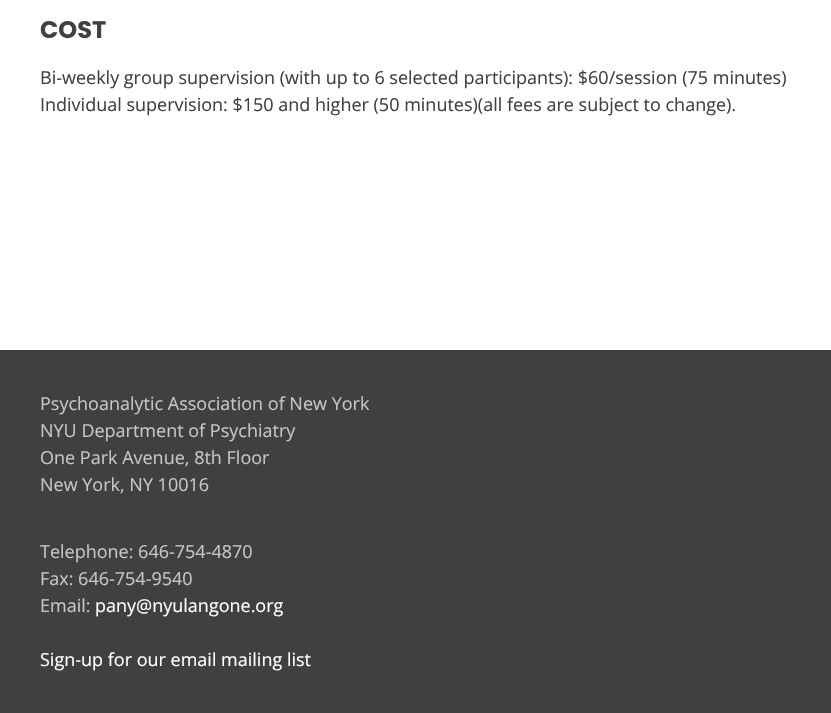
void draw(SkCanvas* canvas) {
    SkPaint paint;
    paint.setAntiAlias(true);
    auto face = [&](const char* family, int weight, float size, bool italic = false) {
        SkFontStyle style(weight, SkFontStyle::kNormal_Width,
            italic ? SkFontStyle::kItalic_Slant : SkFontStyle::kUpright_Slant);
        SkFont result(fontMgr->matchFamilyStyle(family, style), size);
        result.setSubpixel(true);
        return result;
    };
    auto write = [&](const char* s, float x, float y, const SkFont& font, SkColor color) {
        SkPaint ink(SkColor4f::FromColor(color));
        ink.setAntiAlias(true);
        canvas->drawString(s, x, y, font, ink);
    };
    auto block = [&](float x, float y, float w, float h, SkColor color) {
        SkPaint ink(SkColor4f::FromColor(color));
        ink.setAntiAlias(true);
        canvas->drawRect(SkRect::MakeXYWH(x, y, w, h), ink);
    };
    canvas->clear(SK_ColorWHITE);
    auto kFont1 = face("Poppins", 700, 24);
    write("COST", 40, 38, kFont1, SkColorSetRGB(64, 64, 66));
    auto kFont2 = face("Open Sans", 400, 18);
    write("Bi-weekly group supervision (with up to 6 selected participants): $60/session (75 minutes)", 40, 84, kFont2, SkColorSetRGB(64, 64, 66));
    write("Individual supervision: $150 and higher (50 minutes)(all fees are subject to change).", 40, 111, kFont2, SkColorSetRGB(64, 64, 66));
    block(0, 350, 831, 363, SkColorSetRGB(64, 64, 66));
    write("Psychoanalytic Association of New York", 40, 410, kFont2, SkColorSetRGB(198, 198, 198));
    write("NYU Department of Psychiatry", 40, 437, kFont2, SkColorSetRGB(198, 198, 198));
    write("One Park Avenue, 8th Floor", 40, 464, kFont2, SkColorSetRGB(198, 198, 198));
    write("New York, NY 10016", 40, 491, kFont2, SkColorSetRGB(198, 198, 198));
    write("Telephone: 646-754-4870", 40, 558, kFont2, SkColorSetRGB(198, 198, 198));
    write("Fax: 646-754-9540", 40, 585, kFont2, SkColorSetRGB(198, 198, 198));
    write("Email:", 40, 612, kFont2, SkColorSetRGB(198, 198, 198));
    write("pany@nyulangone.org", 95, 612, kFont2, SK_ColorWHITE);
    write("Sign-up for our email mailing list", 40, 666, kFont2, SK_ColorWHITE);
}
